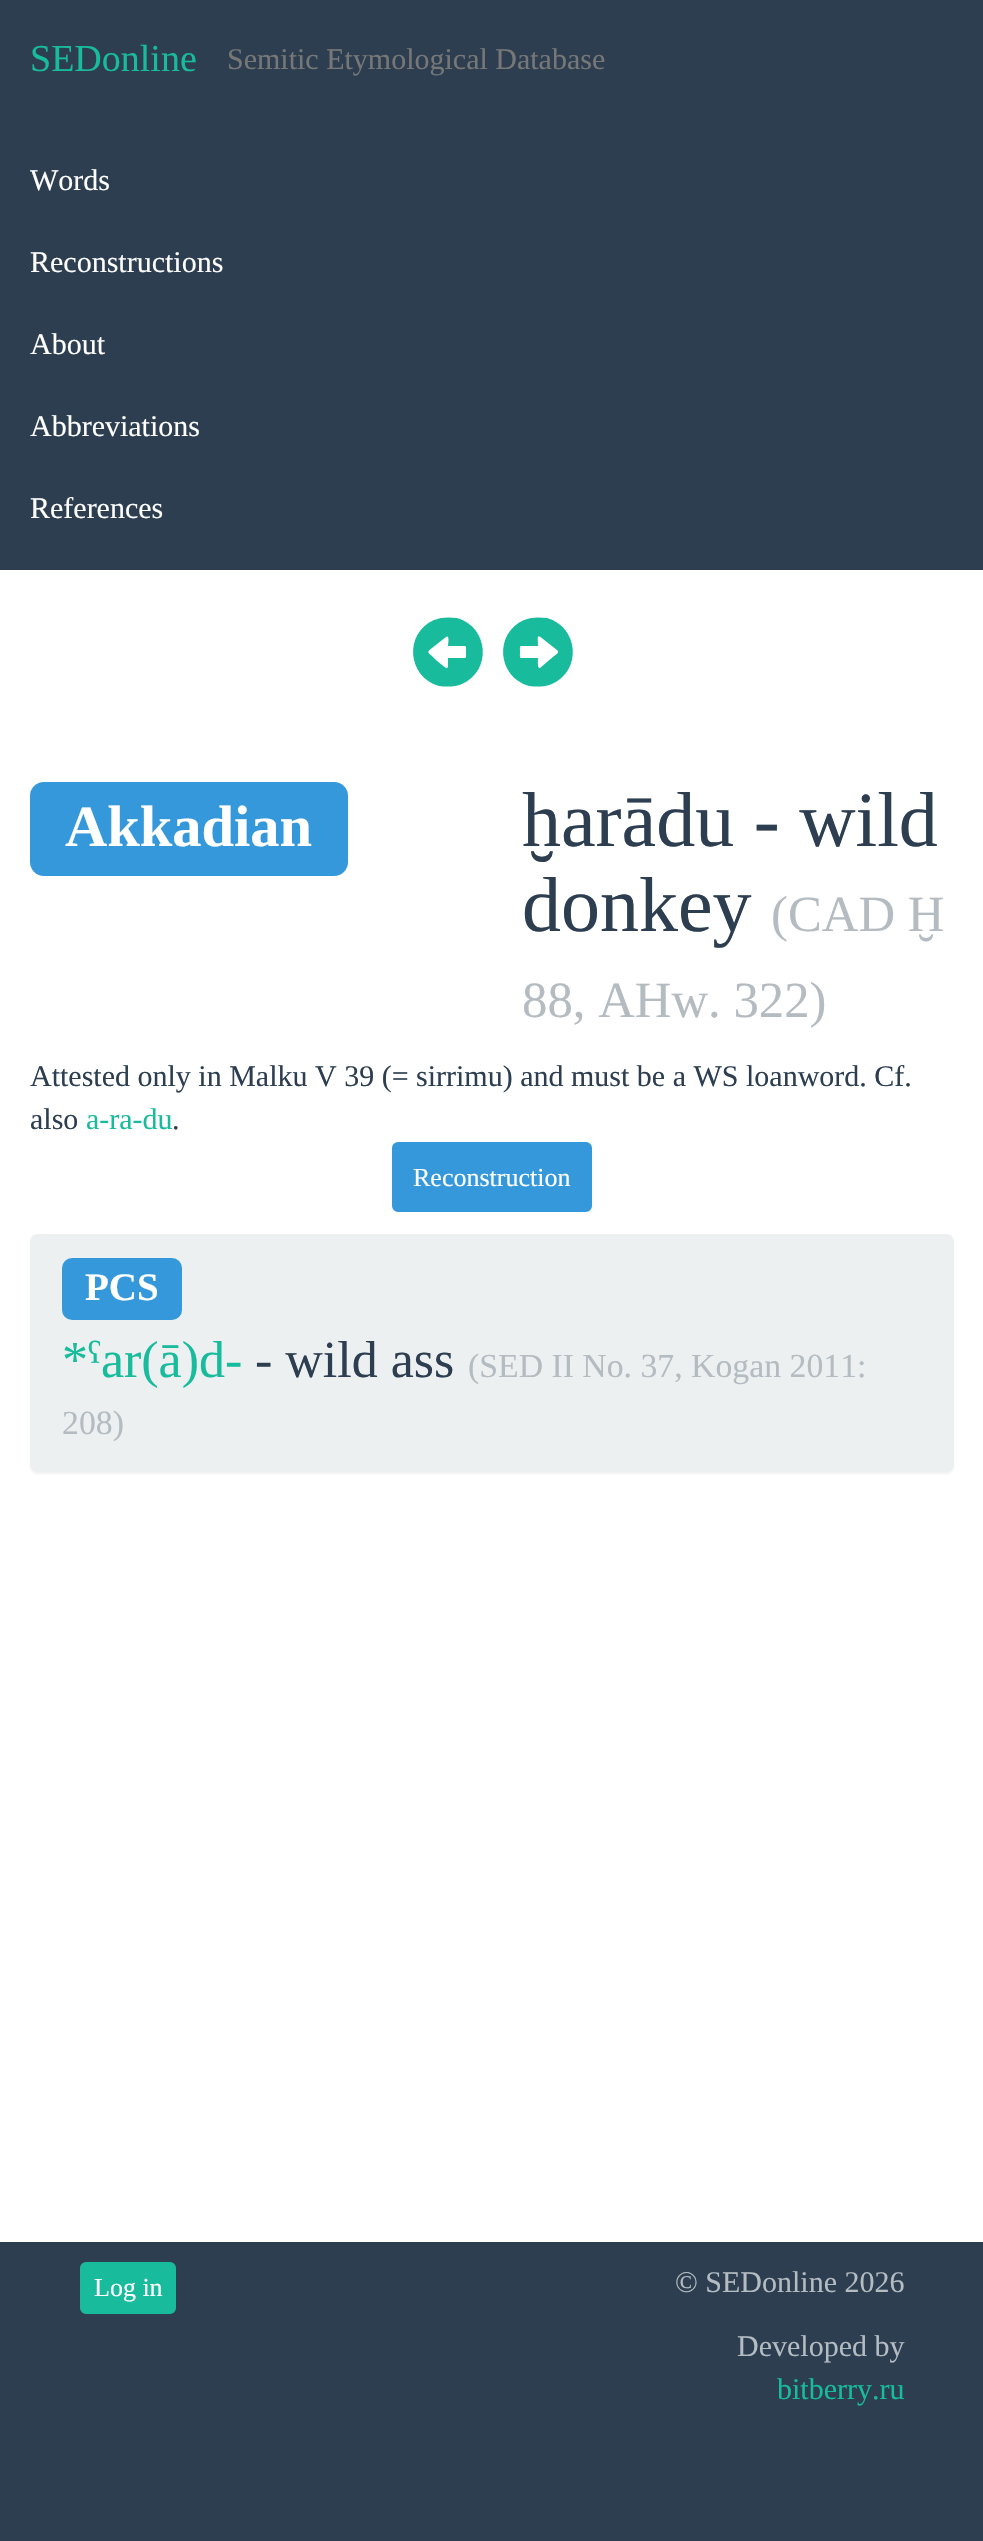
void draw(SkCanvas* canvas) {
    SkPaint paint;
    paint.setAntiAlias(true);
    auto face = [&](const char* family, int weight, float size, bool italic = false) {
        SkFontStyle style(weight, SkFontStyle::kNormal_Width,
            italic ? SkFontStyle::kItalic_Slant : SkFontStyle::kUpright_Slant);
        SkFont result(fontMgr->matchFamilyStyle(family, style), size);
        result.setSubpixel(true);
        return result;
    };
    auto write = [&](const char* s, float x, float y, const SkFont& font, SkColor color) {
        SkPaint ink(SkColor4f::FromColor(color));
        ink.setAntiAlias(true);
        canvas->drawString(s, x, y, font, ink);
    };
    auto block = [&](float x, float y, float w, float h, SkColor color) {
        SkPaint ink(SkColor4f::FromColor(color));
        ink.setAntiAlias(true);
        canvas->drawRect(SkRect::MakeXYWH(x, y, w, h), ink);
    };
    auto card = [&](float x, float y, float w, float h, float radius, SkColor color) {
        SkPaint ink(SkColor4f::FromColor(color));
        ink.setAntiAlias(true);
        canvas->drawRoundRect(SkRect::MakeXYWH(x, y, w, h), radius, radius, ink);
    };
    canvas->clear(SK_ColorWHITE);
    block(0, 0, 983, 570, SkColorSetRGB(44, 62, 80));
    auto kFont1 = face("Liberation Serif", 400, 38);
    write("SEDonline", 30, 71, kFont1, SkColorSetRGB(24, 188, 156));
    auto kFont2 = face("Liberation Serif", 400, 30);
    write("Semitic Etymological Database", 227, 69, kFont2, SkColorSetRGB(119, 119, 119));
    write("Words", 30, 190, kFont2, SK_ColorWHITE);
    write("Reconstructions", 30, 272, kFont2, SK_ColorWHITE);
    write("About", 30, 354, kFont2, SK_ColorWHITE);
    write("Abbreviations", 30, 436, kFont2, SK_ColorWHITE);
    write("References", 30, 518, kFont2, SK_ColorWHITE);
    paint.setColor(SkColorSetRGB(24, 188, 156));
    canvas->drawPath(SkPathBuilder().moveTo(434, 620).cubicTo(441, 617, 449, 617, 457, 618).cubicTo(489, 627, 492, 671, 462, 684).cubicTo(455, 687, 447, 687, 439, 686).cubicTo(407, 677, 404, 633, 434, 620).close().moveTo(446, 637).lineTo(432, 648).cubicTo(427, 652, 427, 652, 432, 656).lineTo(437, 661).cubicTo(449, 670, 448, 672, 448, 658).lineTo(462, 658).cubicTo(467, 658, 466, 658, 466, 652).cubicTo(466, 646, 467, 646, 462, 646).lineTo(448, 646).cubicTo(448, 645, 450, 634, 446, 637).close().detach(), paint);
    canvas->drawPath(SkPathBuilder().moveTo(524, 620).cubicTo(531, 617, 539, 617, 547, 618).cubicTo(579, 627, 582, 671, 552, 684).cubicTo(545, 687, 537, 687, 529, 686).cubicTo(497, 677, 494, 633, 524, 620).close().moveTo(557, 650).lineTo(543, 639).cubicTo(536, 633, 538, 638, 538, 646).lineTo(524, 646).cubicTo(519, 646, 520, 646, 520, 652).cubicTo(520, 658, 519, 658, 524, 658).lineTo(538, 658).cubicTo(538, 659, 537, 669, 540, 668).lineTo(554, 656).cubicTo(556, 655, 560, 652, 557, 650).close().detach(), paint);
    card(30, 782, 318, 94, 14, SkColorSetRGB(52, 152, 219));
    auto kFont3 = face("Liberation Serif", 700, 58.5f);
    write("Akkadian", 65, 846, kFont3, SK_ColorWHITE);
    auto kFont4 = face("Liberation Serif", 400, 78);
    write("ḫarādu - wild", 522, 846, kFont4, SkColorSetRGB(44, 62, 80));
    write("donkey", 522, 931, kFont4, SkColorSetRGB(44, 62, 80));
    auto kFont5 = face("Liberation Serif", 400, 50.75f);
    write("(CAD Ḫ", 771, 931, kFont5, SkColorSetRGB(180, 188, 194));
    write("88, AHw. 322)", 522, 1017, kFont5, SkColorSetRGB(180, 188, 194));
    write("Attested only in Malku V 39 (= sirrimu) and must be a WS loanword. Cf.", 30, 1086, kFont2, SkColorSetRGB(44, 62, 80));
    write("also", 30, 1129, kFont2, SkColorSetRGB(44, 62, 80));
    write("a-ra-du", 86, 1129, kFont2, SkColorSetRGB(24, 188, 156));
    write(".", 172, 1129, kFont2, SkColorSetRGB(44, 62, 80));
    paint.setColor(SkColorSetRGB(52, 152, 219));
    canvas->drawRoundRect(SkRect::MakeXYWH(394, 1144, 196, 66), 4, 4, paint);
    paint.setStyle(SkPaint::kStroke_Style);
    paint.setStrokeWidth(4);
    canvas->drawRoundRect(SkRect::MakeXYWH(394, 1144, 196, 66), 4, 4, paint);
    auto kFont6 = face("Liberation Serif", 400, 26);
    write("Reconstruction", 413, 1186, kFont6, SK_ColorWHITE);
    paint.setStyle(SkPaint::kFill_Style);
    paint.setColor(SkColorSetARGB(13, 0, 0, 0));
    paint.setMaskFilter(SkMaskFilter::MakeBlur(kNormal_SkBlurStyle, 1));
    canvas->drawRoundRect(SkRect::MakeXYWH(30, 1236, 924, 238), 8, 8, paint);
    paint.setMaskFilter(nullptr);
    paint.setStyle(SkPaint::kStroke_Style);
    paint.setStrokeWidth(2);
    paint.setColor(SkColorSetRGB(236, 240, 241));
    canvas->drawRoundRect(SkRect::MakeXYWH(31, 1235, 922, 236), 7, 7, paint);
    paint.setStyle(SkPaint::kFill_Style);
    canvas->drawPath(SkPathBuilder().moveTo(38, 1236).lineTo(946, 1236).cubicTo(949.5f, 1236, 952, 1238.5f, 952, 1242).lineTo(952, 1470).lineTo(32, 1470).lineTo(32, 1242).cubicTo(32, 1238.5f, 34.5f, 1236, 38, 1236).close().detach(), paint);
    card(62, 1258, 120, 62, 10, SkColorSetRGB(52, 152, 219));
    auto kFont7 = face("Liberation Serif", 700, 39);
    write("PCS", 85, 1300, kFont7, SK_ColorWHITE);
    auto kFont8 = face("Liberation Serif", 400, 52);
    write("*ˁar(ā)d-", 62, 1377, kFont8, SkColorSetRGB(24, 188, 156));
    write("- wild ass", 255, 1377, kFont8, SkColorSetRGB(44, 62, 80));
    auto kFont9 = face("Liberation Serif", 400, 33.75f);
    write("(SED II No. 37, Kogan 2011:", 468, 1377, kFont9, SkColorSetRGB(180, 188, 194));
    write("208)", 62, 1434, kFont9, SkColorSetRGB(180, 188, 194));
    block(0, 2242, 983, 299, SkColorSetRGB(44, 62, 80));
    paint.setColor(SkColorSetRGB(24, 188, 156));
    canvas->drawRoundRect(SkRect::MakeXYWH(82, 2264, 92, 48), 4, 4, paint);
    paint.setStyle(SkPaint::kStroke_Style);
    paint.setStrokeWidth(4);
    canvas->drawRoundRect(SkRect::MakeXYWH(82, 2264, 92, 48), 4, 4, paint);
    write("Log in", 94, 2296, kFont6, SK_ColorWHITE);
    write("© SEDonline 2026", 675, 2292, kFont2, SkColorSetRGB(180, 188, 194));
    write("Developed by", 737, 2356, kFont2, SkColorSetRGB(180, 188, 194));
    write("bitberry.ru", 777, 2399, kFont2, SkColorSetRGB(24, 188, 156));
}
